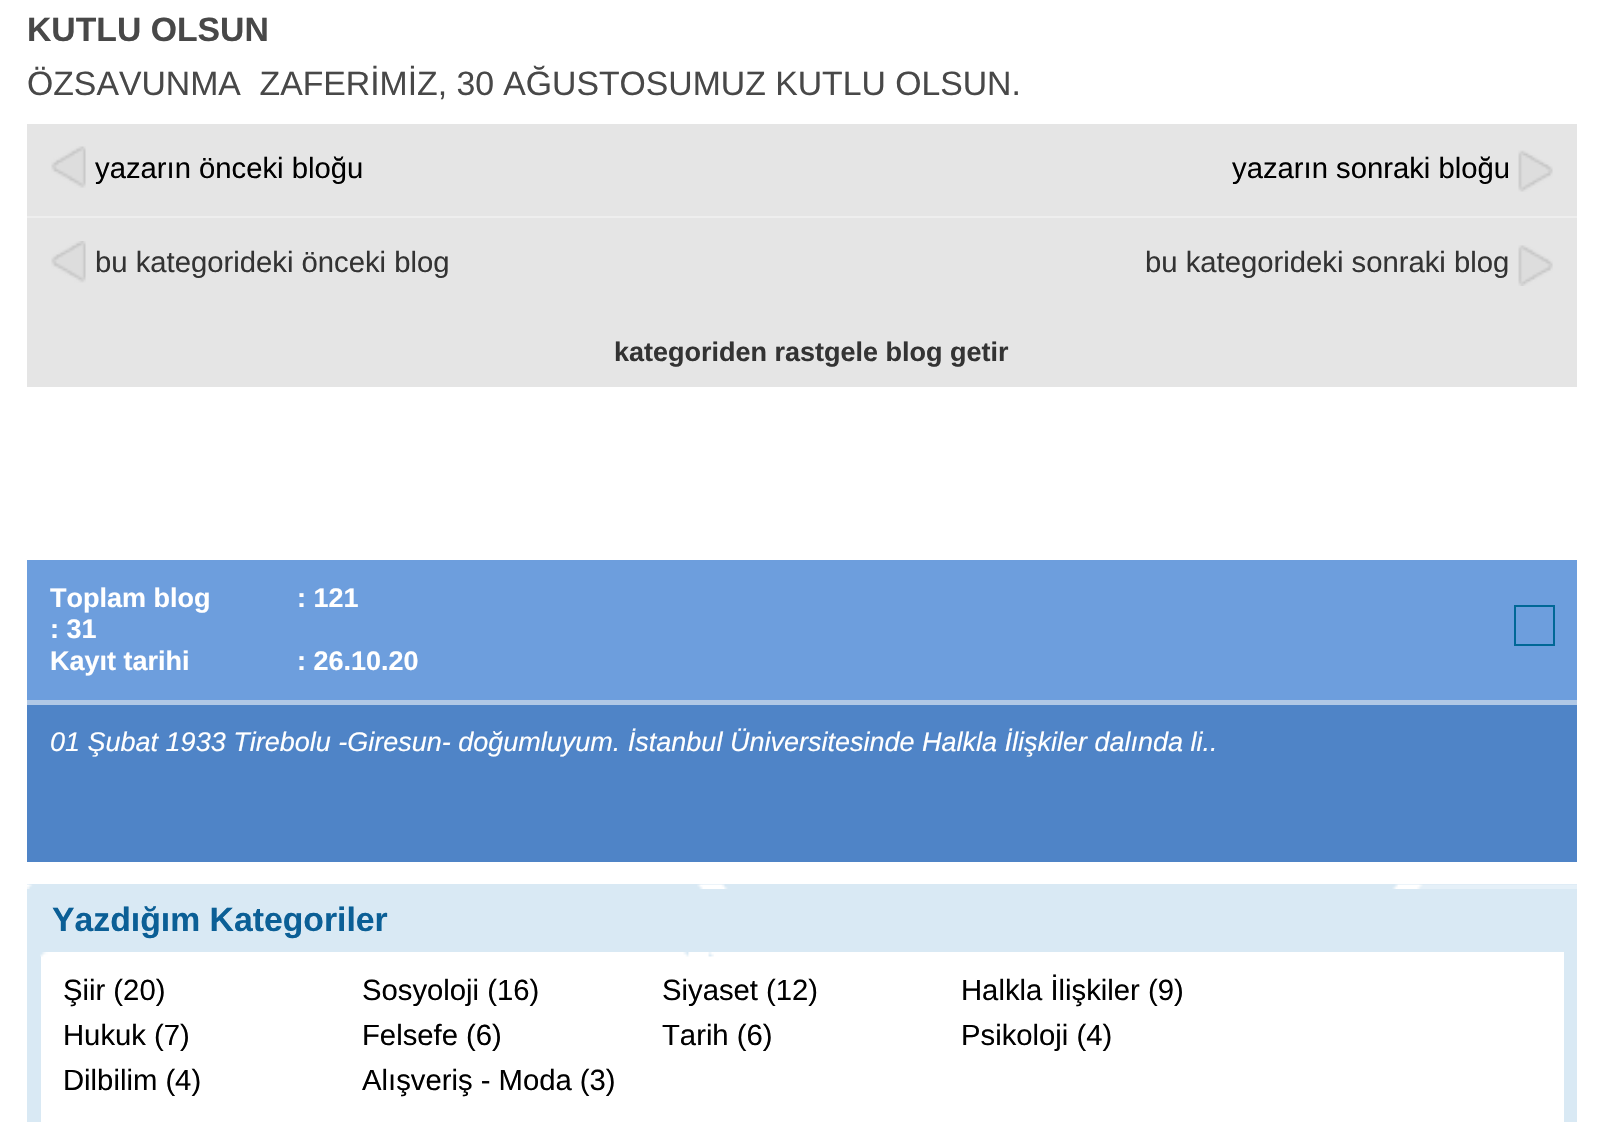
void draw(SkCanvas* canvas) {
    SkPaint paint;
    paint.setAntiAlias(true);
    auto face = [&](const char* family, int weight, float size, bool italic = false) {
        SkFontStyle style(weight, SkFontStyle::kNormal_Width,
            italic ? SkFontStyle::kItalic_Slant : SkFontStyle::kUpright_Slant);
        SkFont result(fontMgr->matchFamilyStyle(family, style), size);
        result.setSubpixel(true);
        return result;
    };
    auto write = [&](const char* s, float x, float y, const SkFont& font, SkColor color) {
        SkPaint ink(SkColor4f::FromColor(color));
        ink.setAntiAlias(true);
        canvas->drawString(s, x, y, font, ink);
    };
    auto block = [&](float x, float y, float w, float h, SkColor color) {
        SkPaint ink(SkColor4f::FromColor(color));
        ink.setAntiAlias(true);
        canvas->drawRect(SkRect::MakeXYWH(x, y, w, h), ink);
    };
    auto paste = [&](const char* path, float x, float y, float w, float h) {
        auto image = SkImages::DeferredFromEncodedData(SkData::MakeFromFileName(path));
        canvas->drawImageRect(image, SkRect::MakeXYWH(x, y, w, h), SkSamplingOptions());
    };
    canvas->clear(SK_ColorWHITE);
    auto kFont1 = face("Liberation Sans", 700, 33.75f);
    write("KUTLU OLSUN", 27, 41, kFont1, SkColorSetRGB(72, 72, 72));
    auto kFont2 = face("Liberation Sans", 400, 33.75f);
    write("ÖZSAVUNMA  ZAFERİMİZ, 30 AĞUSTOSUMUZ KUTLU OLSUN.", 27, 95, kFont2, SkColorSetRGB(72, 72, 72));
    block(27, 124, 1550, 263, SkColorSetRGB(229, 229, 229));
    block(27, 216, 1550, 2, SkColorSetRGB(238, 238, 238));
    paste("pic1.png", 51, 146, 35, 42);
    auto kFont3 = face("Liberation Sans", 400, 29.25f);
    write("yazarın önceki bloğu", 95, 178, kFont3, SK_ColorBLACK);
    paste("pic2.png", 1518, 150, 35, 42);
    write("yazarın sonraki bloğu", 1232, 178, kFont3, SK_ColorBLACK);
    paste("pic3.png", 51, 241, 35, 42);
    write("bu kategorideki önceki blog", 95, 272, kFont3, SkColorSetRGB(51, 51, 51));
    paste("pic4.png", 1518, 245, 35, 41);
    write("bu kategorideki sonraki blog", 1145, 272, kFont3, SkColorSetRGB(51, 51, 51));
    auto kFont4 = face("Liberation Sans", 700, 27);
    write("kategoriden rastgele blog getir", 614, 361, kFont4, SkColorSetRGB(51, 51, 51));
    block(27, 705, 1550, 157, SkColorSetRGB(79, 132, 199));
    block(27, 560, 1550, 140, SkColorSetRGB(109, 158, 221));
    block(27, 700, 1550, 5, SkColorSetRGB(176, 200, 230));
    write("Toplam blog", 50, 607, kFont4, SK_ColorWHITE);
    write(": 121", 297, 607, kFont4, SK_ColorWHITE);
    write(": 31", 50, 638, kFont4, SK_ColorWHITE);
    write("Kayıt tarihi", 50, 670, kFont4, SK_ColorWHITE);
    write(": 26.10.20", 297, 670, kFont4, SK_ColorWHITE);
    paint.setStyle(SkPaint::kStroke_Style);
    paint.setStrokeWidth(2);
    paint.setColor(SkColorSetRGB(0, 103, 150));
    canvas->drawRect(SkRect::MakeXYWH(1515, 606, 39, 39), paint);
    auto kFont5 = face("Liberation Sans", 400, 27, true);
    write("01 Şubat 1933 Tirebolu -Giresun- doğumluyum. İstanbul Üniversitesinde Halkla İlişkiler dalında li..", 50, 751, kFont5, SK_ColorWHITE);
    block(27, 884, 1550, 238, SkColorSetRGB(217, 233, 244));
    paste("pic5.png", 27, 884, 1550, 5);
    write("Yazdığım Kategoriler", 52, 931, kFont1, SkColorSetRGB(11, 95, 150));
    block(41, 952, 1523, 170, SK_ColorWHITE);
    paste("pic6.png", 40, 952, 674, 5);
    write("Şiir (20)", 63, 1000, kFont3, SK_ColorBLACK);
    write("Sosyoloji (16)", 362, 1000, kFont3, SK_ColorBLACK);
    write("Siyaset (12)", 662, 1000, kFont3, SK_ColorBLACK);
    write("Halkla İlişkiler (9)", 961, 1000, kFont3, SK_ColorBLACK);
    write("Hukuk (7)", 63, 1045, kFont3, SK_ColorBLACK);
    write("Felsefe (6)", 362, 1045, kFont3, SK_ColorBLACK);
    write("Tarih (6)", 662, 1045, kFont3, SK_ColorBLACK);
    write("Psikoloji (4)", 961, 1045, kFont3, SK_ColorBLACK);
    write("Dilbilim (4)", 63, 1090, kFont3, SK_ColorBLACK);
    write("Alışveriş - Moda (3)", 362, 1090, kFont3, SK_ColorBLACK);
}
